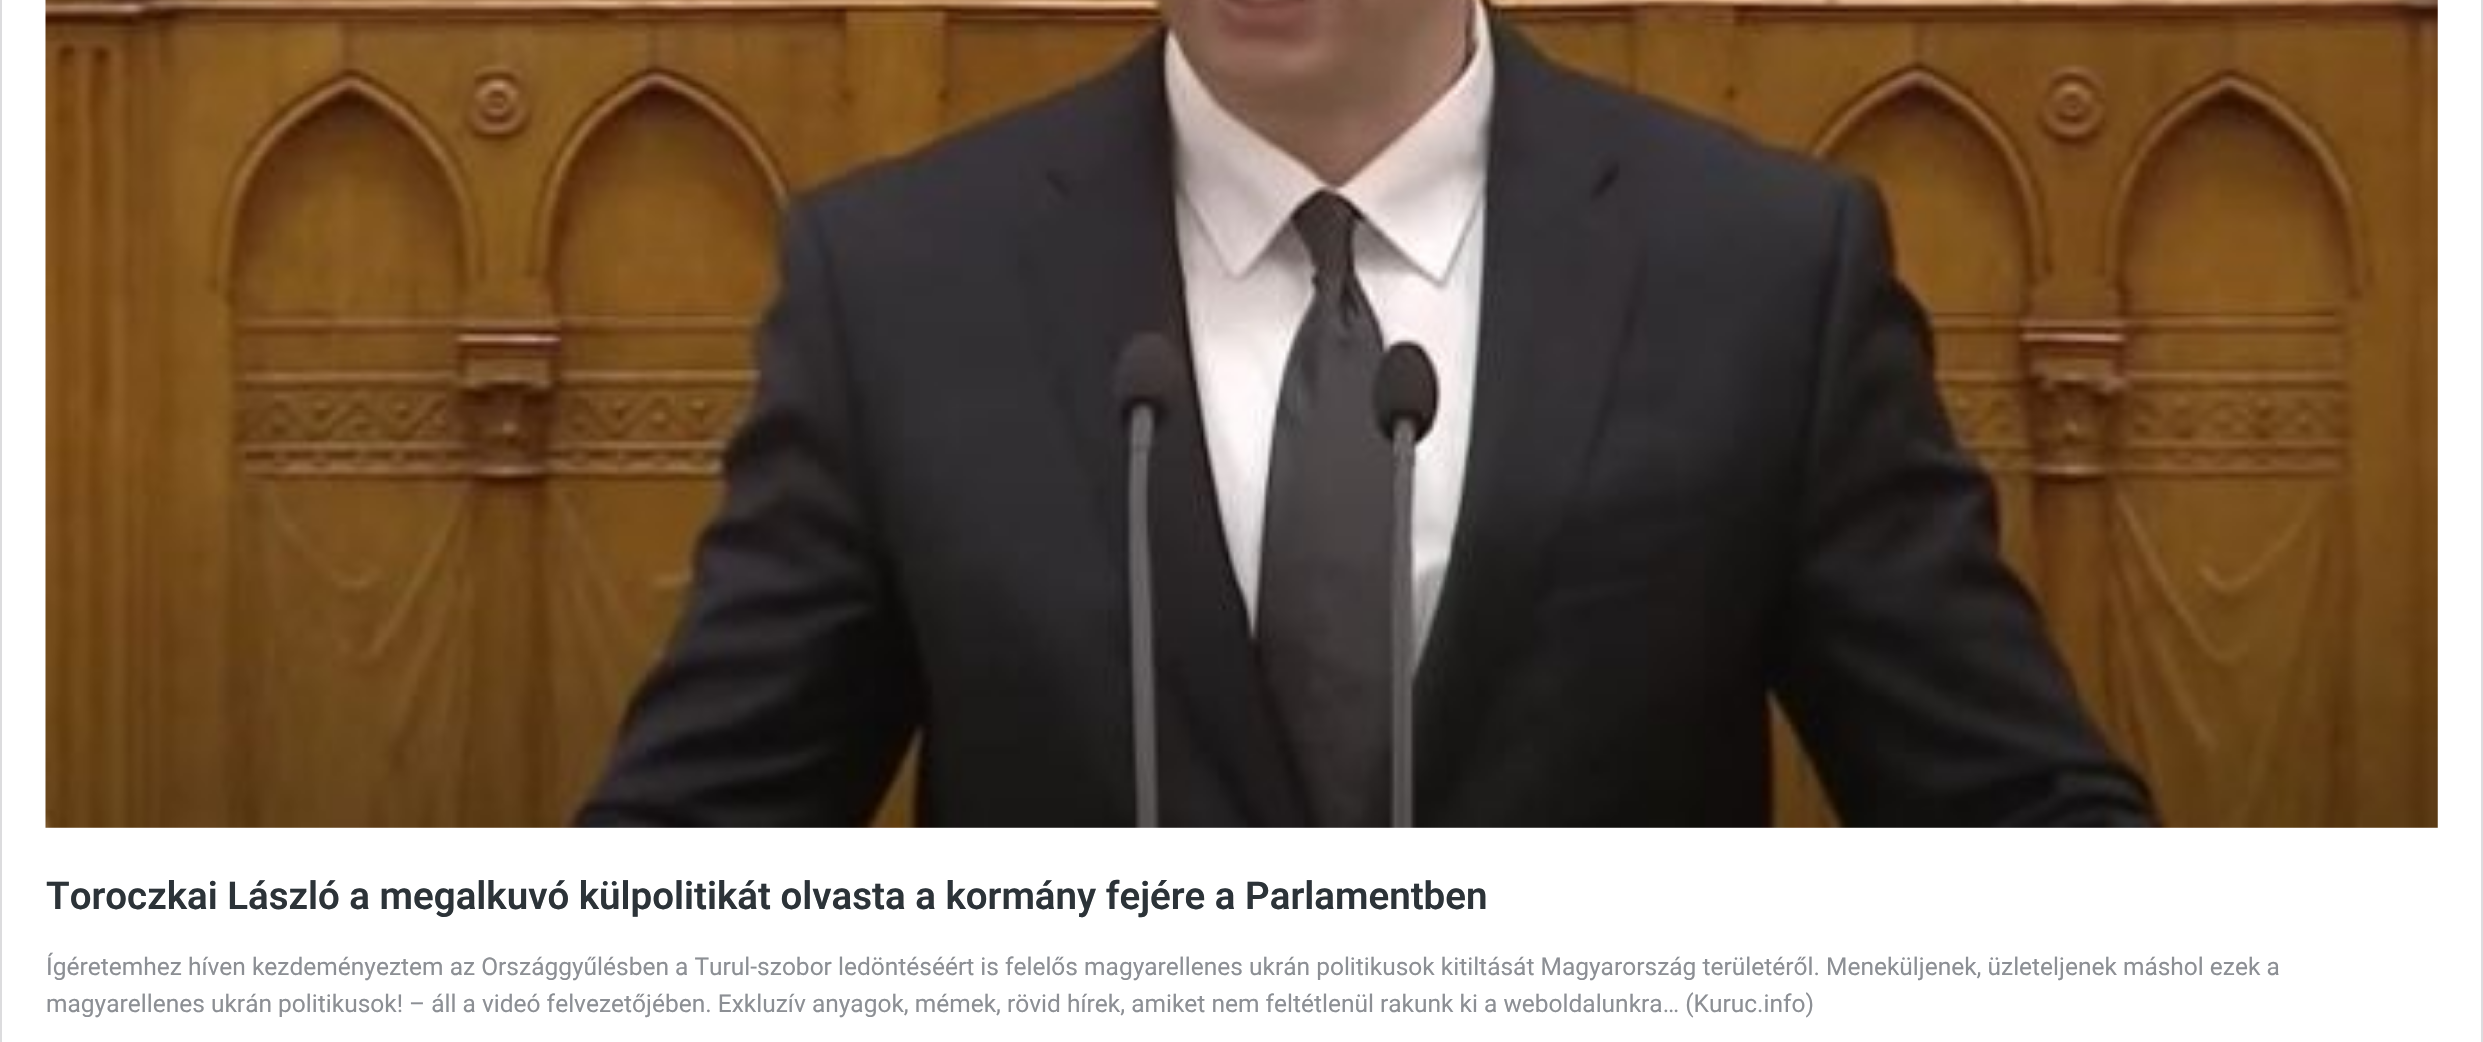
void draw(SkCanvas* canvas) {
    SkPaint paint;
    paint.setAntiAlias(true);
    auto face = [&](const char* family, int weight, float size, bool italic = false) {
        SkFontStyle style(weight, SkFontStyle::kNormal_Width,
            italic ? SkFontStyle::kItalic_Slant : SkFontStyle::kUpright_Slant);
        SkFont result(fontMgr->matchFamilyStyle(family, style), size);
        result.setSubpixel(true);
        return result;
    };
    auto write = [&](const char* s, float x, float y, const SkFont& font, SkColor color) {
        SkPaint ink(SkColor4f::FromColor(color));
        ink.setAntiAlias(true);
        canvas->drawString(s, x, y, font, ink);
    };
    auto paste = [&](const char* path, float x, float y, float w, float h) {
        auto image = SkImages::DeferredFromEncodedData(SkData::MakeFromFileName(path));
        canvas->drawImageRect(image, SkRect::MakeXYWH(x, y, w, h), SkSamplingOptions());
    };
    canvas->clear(SK_ColorWHITE);
    paint.setStyle(SkPaint::kStroke_Style);
    paint.setStrokeWidth(2);
    paint.setColor(SkColorSetRGB(220, 220, 222));
    canvas->drawRect(SkRect::MakeXYWH(1, -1, 2481, 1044), paint);
    paste("pic1.png", 45, 0, 2393, 828);
    auto kFont1 = face("Roboto", 600, 38.5f);
    write("Toroczkai László a megalkuvó külpolitikát olvasta a kormány fejére a Parlamentben", 46, 909, kFont1, SkColorSetRGB(44, 51, 56));
    auto kFont2 = face("Roboto", 400, 24.5f);
    write("Ígéretemhez híven kezdeményeztem az Országgyűlésben a Turul-szobor ledöntéséért is felelős magyarellenes ukrán politikusok kitiltását Magyarország területéről. Meneküljenek, üzleteljenek máshol ezek a", 46, 975, kFont2, SkColorSetRGB(140, 143, 148));
    write("magyarellenes ukrán politikusok! – áll a videó felvezetőjében. Exkluzív anyagok, mémek, rövid hírek, amiket nem feltétlenül rakunk ki a weboldalunkra… (Kuruc.info)", 46, 1012, kFont2, SkColorSetRGB(140, 143, 148));
}
